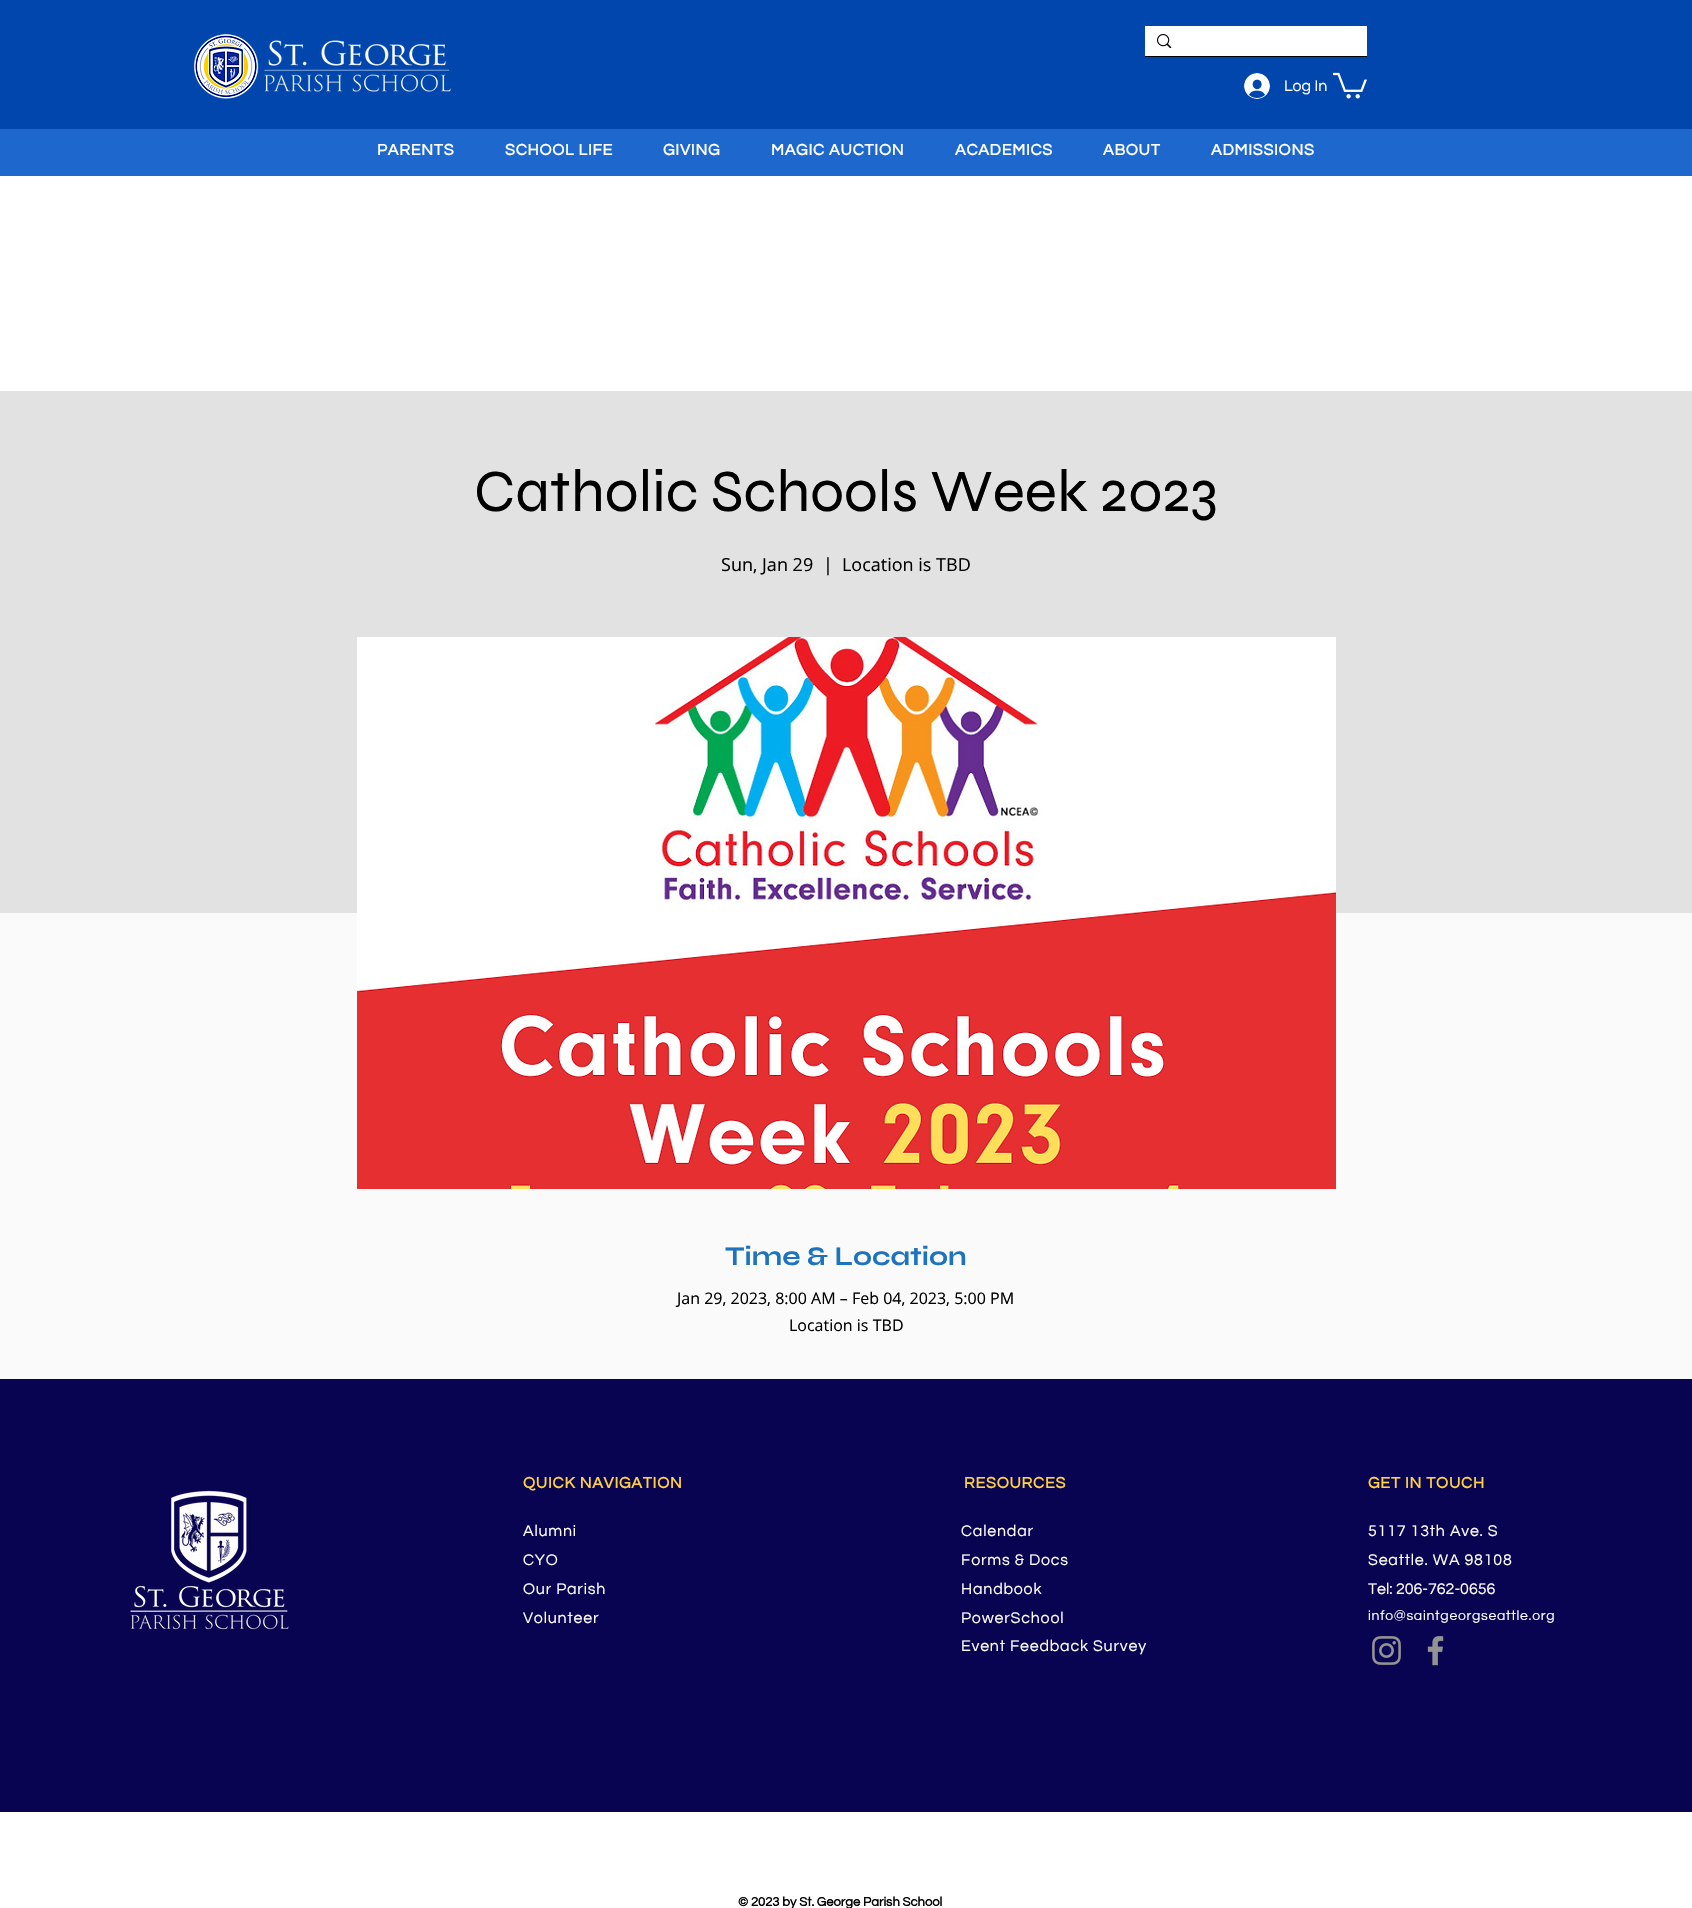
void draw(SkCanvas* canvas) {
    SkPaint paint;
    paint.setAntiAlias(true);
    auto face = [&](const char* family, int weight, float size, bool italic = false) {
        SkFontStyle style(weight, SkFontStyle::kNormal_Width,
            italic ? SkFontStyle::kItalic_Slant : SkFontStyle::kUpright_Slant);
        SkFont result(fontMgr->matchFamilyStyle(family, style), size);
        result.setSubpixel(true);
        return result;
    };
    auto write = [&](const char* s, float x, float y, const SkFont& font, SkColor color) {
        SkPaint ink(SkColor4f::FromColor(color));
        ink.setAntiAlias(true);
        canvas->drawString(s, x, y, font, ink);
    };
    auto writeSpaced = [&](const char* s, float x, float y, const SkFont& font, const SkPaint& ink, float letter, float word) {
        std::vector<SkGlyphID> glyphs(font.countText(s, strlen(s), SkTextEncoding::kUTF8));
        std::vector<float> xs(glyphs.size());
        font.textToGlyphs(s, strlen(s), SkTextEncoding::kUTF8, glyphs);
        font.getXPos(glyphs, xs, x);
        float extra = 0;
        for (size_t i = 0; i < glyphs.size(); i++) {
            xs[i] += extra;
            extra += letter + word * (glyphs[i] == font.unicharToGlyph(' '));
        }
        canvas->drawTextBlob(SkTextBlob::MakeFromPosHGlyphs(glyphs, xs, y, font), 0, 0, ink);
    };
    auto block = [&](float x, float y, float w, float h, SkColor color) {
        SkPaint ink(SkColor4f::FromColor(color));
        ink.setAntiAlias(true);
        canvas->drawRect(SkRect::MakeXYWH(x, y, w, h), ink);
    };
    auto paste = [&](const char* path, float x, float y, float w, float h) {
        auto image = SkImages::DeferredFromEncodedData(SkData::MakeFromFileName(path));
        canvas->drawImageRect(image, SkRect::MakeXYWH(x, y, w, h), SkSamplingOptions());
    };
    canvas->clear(SK_ColorWHITE);
    block(0, 0, 1692, 129, SkColorSetRGB(0, 70, 173));
    paste("pic1.png", 193, 34, 259, 65);
    block(1145, 56, 222, 1, SK_ColorBLACK);
    block(1145, 26, 222, 30, SK_ColorWHITE);
    paste("pic2.png", 1157, 34, 15, 14);
    paste("pic3.png", 1244, 73, 26, 26);
    auto kFont1 = face("Questrial", 400, 16);
    write("Log In", 1284, 91, kFont1, SK_ColorWHITE);
    paste("pic4.png", 1333, 72, 34, 27);
    block(0, 129, 1692, 47, SkColorSetRGB(29, 103, 205));
    auto kFont2 = face("Questrial", 700, 16);
    paint.setColor(SK_ColorWHITE);
    writeSpaced("PARENTS", 377, 155, kFont2, paint, 0.8f, 0);
    writeSpaced("SCHOOL LIFE", 505, 155, kFont2, paint, 0.8f, 0);
    writeSpaced("GIVING", 663, 155, kFont2, paint, 0.8f, 0);
    writeSpaced("MAGIC AUCTION", 771, 155, kFont2, paint, 0.8f, 0);
    writeSpaced("ACADEMICS", 955, 155, kFont2, paint, 0.8f, 0);
    writeSpaced("ABOUT", 1103, 155, kFont2, paint, 0.8f, 0);
    writeSpaced("ADMISSIONS", 1211, 155, kFont2, paint, 0.8f, 0);
    block(0, 391, 1692, 522, SkColorSetRGB(226, 226, 226));
    auto kFont3 = face("Syne", 400, 60);
    write("Catholic Schools Week 2023", 474, 511, kFont3, SK_ColorBLACK);
    auto kFont4 = face("Open Sans", 400, 18);
    write("Sun, Jan 29", 721, 571, kFont4, SK_ColorBLACK);
    write("|", 823, 571, kFont4, SK_ColorBLACK);
    write("Location is TBD", 842, 571, kFont4, SK_ColorBLACK);
    block(0, 913, 1692, 466, SkColorSetRGB(250, 250, 250));
    paste("pic5.png", 357, 637, 979, 552);
    auto kFont5 = face("Syne", 700, 27);
    write("Time & Location", 725, 1265, kFont5, SkColorSetRGB(30, 115, 190));
    auto kFont6 = face("Open Sans", 400, 16);
    write("Jan 29, 2023, 8:00 AM – Feb 04, 2023, 5:00 PM", 677, 1304, kFont6, SK_ColorBLACK);
    write("Location is TBD", 789, 1331, kFont6, SK_ColorBLACK);
    block(0, 1379, 1692, 433, SkColorSetRGB(8, 4, 81));
    paste("pic6.png", 130, 1490, 159, 140);
    paint.setColor(SkColorSetRGB(255, 208, 67));
    writeSpaced("QUICK NAVIGATION", 523, 1488, kFont2, paint, 0.8f, 0);
    paint.setColor(SK_ColorWHITE);
    writeSpaced("Alumni", 523, 1536, kFont1, paint, 0.8f, 0);
    writeSpaced("CYO", 523, 1565, kFont1, paint, 0.8f, 0);
    writeSpaced("Our Parish", 523, 1594, kFont1, paint, 0.8f, 0);
    writeSpaced("Volunteer", 523, 1623, kFont1, paint, 0.8f, 0);
    paint.setColor(SkColorSetRGB(255, 208, 67));
    writeSpaced("RESOURCES", 964, 1488, kFont2, paint, 0.8f, 0);
    paint.setColor(SK_ColorWHITE);
    writeSpaced("Calendar", 961, 1536, kFont1, paint, 0.8f, 0);
    writeSpaced("Forms & Docs", 961, 1565, kFont1, paint, 0.8f, 0);
    writeSpaced("Handbook", 961, 1594, kFont1, paint, 0.8f, 0);
    writeSpaced("PowerSchool", 961, 1623, kFont1, paint, 0.8f, 0);
    writeSpaced("Event Feedback Survey", 961, 1651, kFont1, paint, 0.8f, 0);
    paint.setColor(SkColorSetRGB(255, 208, 67));
    writeSpaced("GET IN TOUCH", 1368, 1488, kFont2, paint, 0.8f, 0);
    paint.setColor(SK_ColorWHITE);
    writeSpaced("5117 13th Ave. S", 1368, 1536, kFont1, paint, 0.8f, 0);
    writeSpaced("Seattle. WA 98108", 1368, 1565, kFont1, paint, 0.8f, 0);
    write("Tel: 206-762-0656", 1368, 1594, kFont1, SK_ColorWHITE);
    auto kFont7 = face("Questrial", 400, 14);
    writeSpaced("info@saintgeorgseattle.org", 1368, 1620, kFont7, paint, 0.7f, 0);
    paste("pic7.png", 1372, 1636, 29, 29);
    paste("pic8.png", 1427, 1636, 17, 30);
    auto kFont8 = face("Questrial", 700, 13);
    write("© 2023 by St. George Parish School", 738, 1906, kFont8, SK_ColorBLACK);
}
